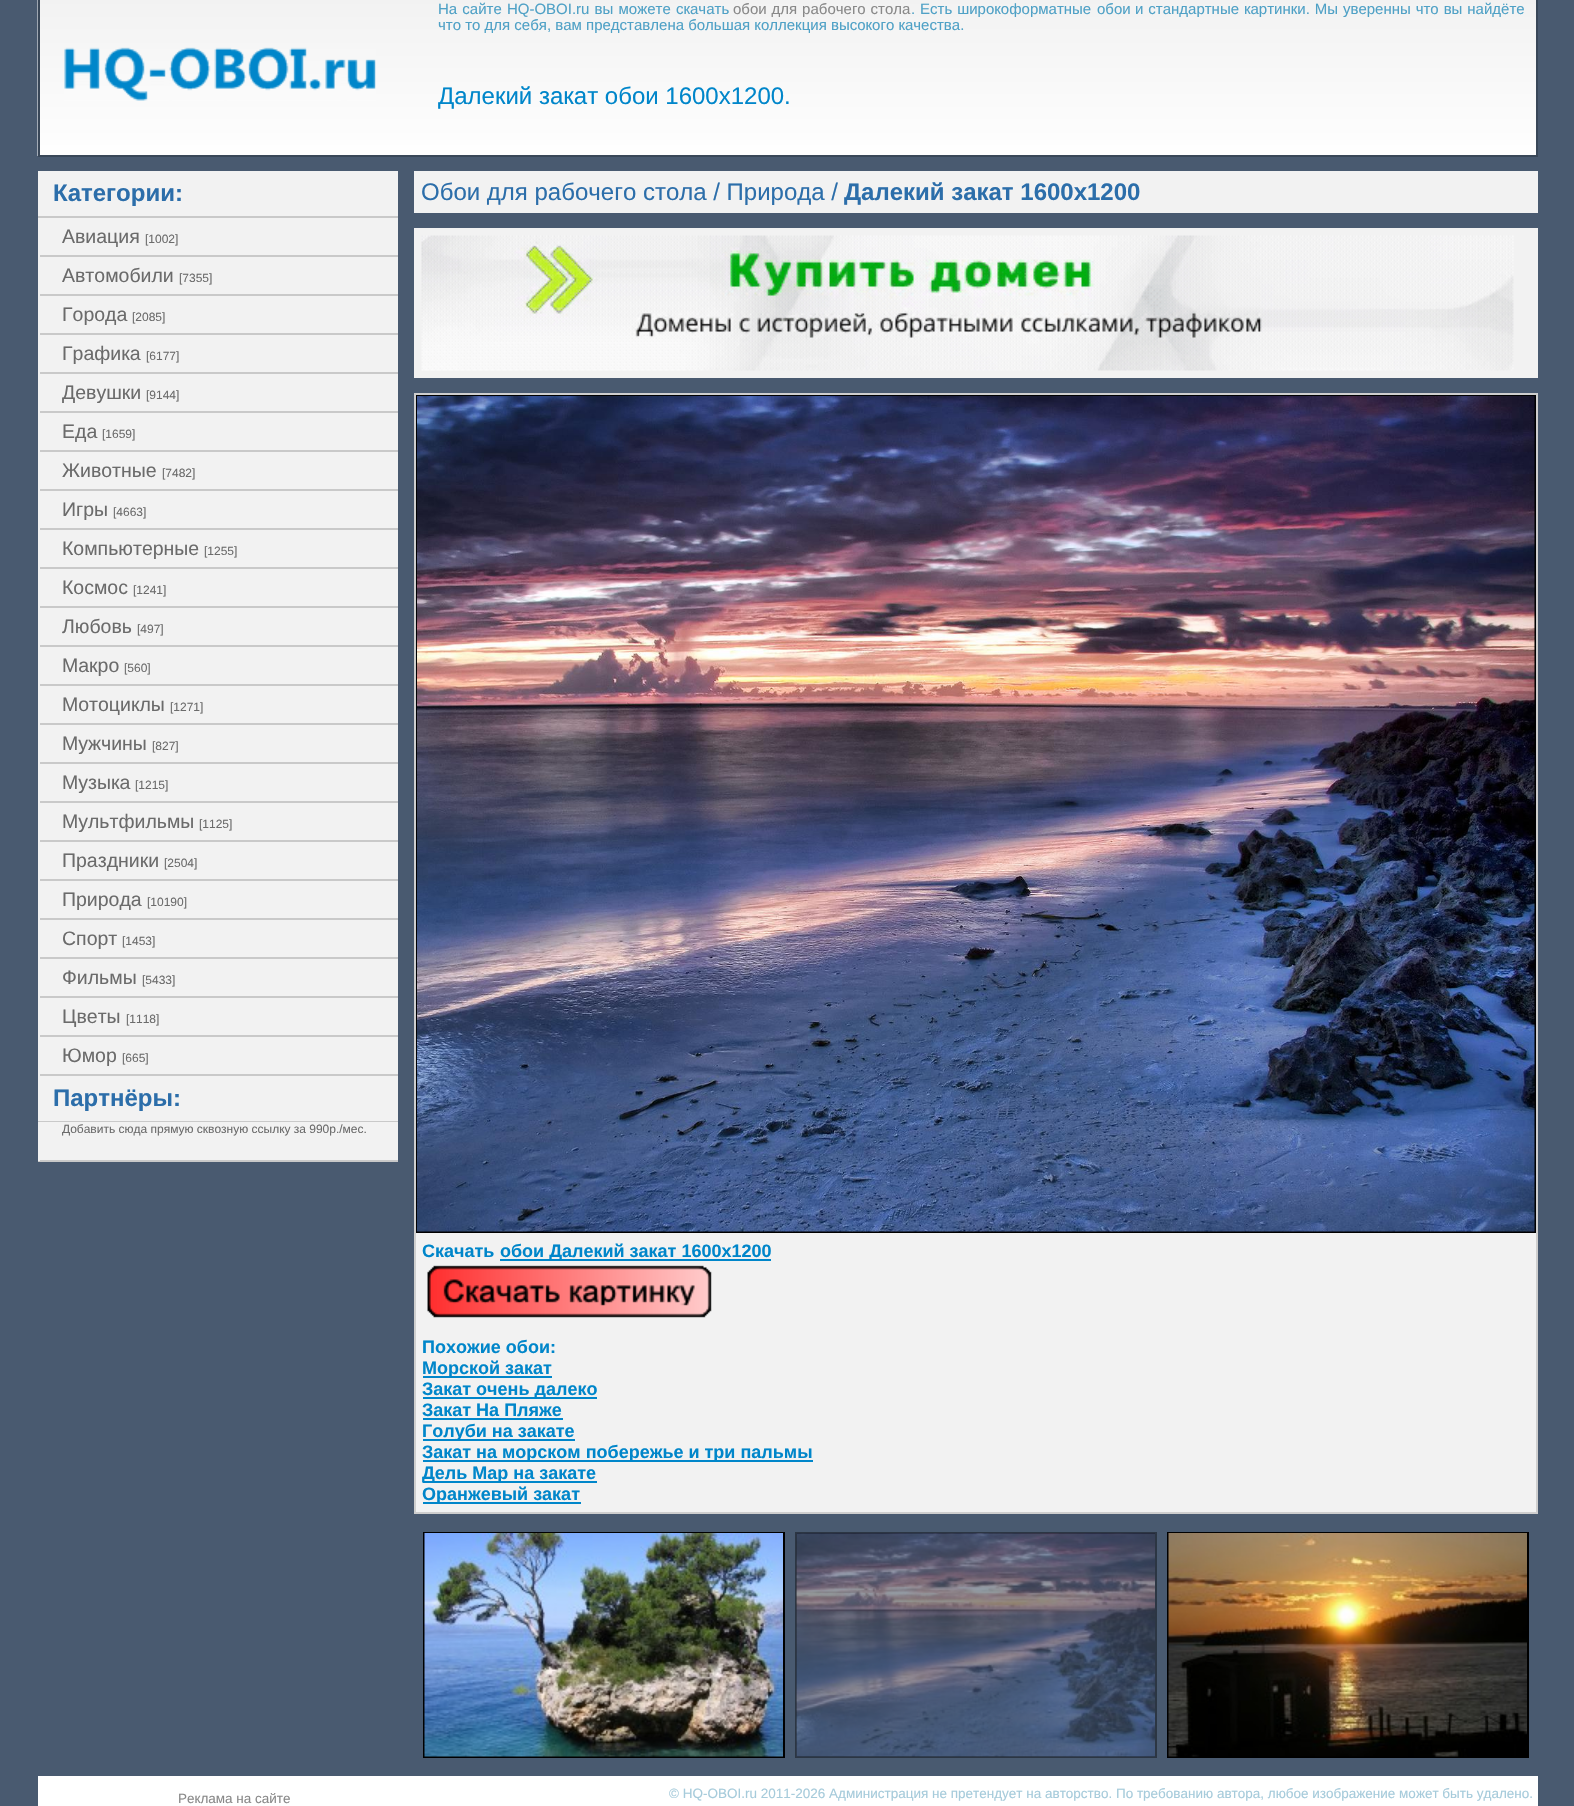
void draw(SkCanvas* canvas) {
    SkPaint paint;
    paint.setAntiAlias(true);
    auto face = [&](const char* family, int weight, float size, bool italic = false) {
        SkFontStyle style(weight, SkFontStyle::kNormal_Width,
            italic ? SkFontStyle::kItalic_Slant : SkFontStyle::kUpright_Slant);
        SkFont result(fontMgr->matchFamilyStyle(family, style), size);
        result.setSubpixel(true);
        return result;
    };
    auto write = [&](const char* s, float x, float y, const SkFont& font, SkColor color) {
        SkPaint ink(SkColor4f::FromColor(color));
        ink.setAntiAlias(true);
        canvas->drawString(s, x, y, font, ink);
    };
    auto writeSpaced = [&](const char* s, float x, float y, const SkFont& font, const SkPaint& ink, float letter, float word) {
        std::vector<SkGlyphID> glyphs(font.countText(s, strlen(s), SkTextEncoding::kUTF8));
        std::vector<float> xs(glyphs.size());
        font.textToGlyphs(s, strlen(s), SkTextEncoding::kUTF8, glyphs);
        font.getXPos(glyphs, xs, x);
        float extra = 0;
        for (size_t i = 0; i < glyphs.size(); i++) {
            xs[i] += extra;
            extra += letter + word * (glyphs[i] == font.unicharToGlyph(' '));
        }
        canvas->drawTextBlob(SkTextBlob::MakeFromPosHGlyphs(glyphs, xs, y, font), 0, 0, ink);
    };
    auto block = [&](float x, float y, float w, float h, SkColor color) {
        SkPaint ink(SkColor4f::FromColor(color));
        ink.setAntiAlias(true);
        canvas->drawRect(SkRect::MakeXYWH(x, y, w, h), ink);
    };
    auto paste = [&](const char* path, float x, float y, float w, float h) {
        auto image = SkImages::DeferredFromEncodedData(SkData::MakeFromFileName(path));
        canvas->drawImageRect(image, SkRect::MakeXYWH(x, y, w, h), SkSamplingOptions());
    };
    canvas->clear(SkColorSetRGB(73, 90, 112));
    paste("pic1.png", 37, 0, 1499, 156);
    block(38, 155, 360, 2, SkColorSetRGB(57, 71, 88));
    block(38, 0, 2, 156, SkColorSetRGB(57, 71, 88));
    paste("pic2.png", 64, 47, 312, 54);
    block(1536, 0, 2, 156, SkColorSetRGB(57, 71, 88));
    block(398, 155, 1140, 2, SkColorSetRGB(57, 71, 88));
    auto kFont1 = face("Liberation Sans", 400, 15);
    paint.setColor(SkColorSetRGB(79, 161, 198));
    writeSpaced("На сайте HQ-OBOI.ru вы можете скачать", 438, 14, kFont1, paint, 0, 1);
    paint.setColor(SkColorSetRGB(137, 137, 137));
    writeSpaced("обои для рабочего стола", 733, 14, kFont1, paint, 0, 0.75f);
    paint.setColor(SkColorSetRGB(79, 161, 198));
    writeSpaced(". Есть широкоформатные", 911, 14, kFont1, paint, 0, 0.75f);
    write("обои", 1097, 14, kFont1, SkColorSetRGB(79, 161, 198));
    writeSpaced("и стандартные картинки. Мы уверенны что вы найдёте", 1135, 14, kFont1, paint, 0, 0.75f);
    write("что то для себя, вам представлена большая коллекция высокого качества.", 438, 30, kFont1, SkColorSetRGB(79, 161, 198));
    auto kFont2 = face("Liberation Sans", 400, 24);
    write("Далекий закат обои 1600x1200.", 438, 104, kFont2, SkColorSetRGB(0, 134, 202));
    block(38, 171, 360, 950, SkColorSetRGB(242, 242, 242));
    block(38, 216, 360, 2, SkColorSetRGB(201, 201, 201));
    auto kFont3 = face("Liberation Sans", 700, 24);
    write("Категории:", 53, 201, kFont3, SkColorSetRGB(44, 110, 170));
    block(38, 255, 360, 2, SkColorSetRGB(201, 201, 201));
    block(38, 255, 2, 2, SkColorSetRGB(242, 242, 242));
    auto kFont4 = face("Liberation Sans", 400, 19.5f);
    write("Авиация", 62, 243, kFont4, SkColorSetRGB(107, 107, 107));
    auto kFont5 = face("Liberation Sans", 400, 12);
    write("[1002]", 145, 243, kFont5, SkColorSetRGB(107, 107, 107));
    block(38, 294, 360, 2, SkColorSetRGB(201, 201, 201));
    block(38, 294, 2, 2, SkColorSetRGB(242, 242, 242));
    write("Автомобили", 62, 282, kFont4, SkColorSetRGB(107, 107, 107));
    write("[7355]", 179, 282, kFont5, SkColorSetRGB(107, 107, 107));
    block(38, 333, 360, 2, SkColorSetRGB(201, 201, 201));
    block(38, 333, 2, 2, SkColorSetRGB(242, 242, 242));
    write("Города", 62, 321, kFont4, SkColorSetRGB(107, 107, 107));
    write("[2085]", 132, 321, kFont5, SkColorSetRGB(107, 107, 107));
    block(38, 372, 360, 2, SkColorSetRGB(201, 201, 201));
    block(38, 372, 2, 2, SkColorSetRGB(242, 242, 242));
    write("Графика", 62, 360, kFont4, SkColorSetRGB(107, 107, 107));
    write("[6177]", 146, 360, kFont5, SkColorSetRGB(107, 107, 107));
    block(38, 411, 360, 2, SkColorSetRGB(201, 201, 201));
    block(38, 411, 2, 2, SkColorSetRGB(242, 242, 242));
    write("Девушки", 62, 399, kFont4, SkColorSetRGB(107, 107, 107));
    write("[9144]", 146, 399, kFont5, SkColorSetRGB(107, 107, 107));
    block(38, 450, 360, 2, SkColorSetRGB(201, 201, 201));
    block(38, 450, 2, 2, SkColorSetRGB(242, 242, 242));
    write("Еда", 62, 438, kFont4, SkColorSetRGB(107, 107, 107));
    write("[1659]", 102, 438, kFont5, SkColorSetRGB(107, 107, 107));
    block(38, 489, 360, 2, SkColorSetRGB(201, 201, 201));
    block(38, 489, 2, 2, SkColorSetRGB(242, 242, 242));
    write("Животные", 62, 477, kFont4, SkColorSetRGB(107, 107, 107));
    write("[7482]", 162, 477, kFont5, SkColorSetRGB(107, 107, 107));
    block(38, 528, 360, 2, SkColorSetRGB(201, 201, 201));
    block(38, 528, 2, 2, SkColorSetRGB(242, 242, 242));
    write("Игры", 62, 516, kFont4, SkColorSetRGB(107, 107, 107));
    write("[4663]", 113, 516, kFont5, SkColorSetRGB(107, 107, 107));
    block(38, 567, 360, 2, SkColorSetRGB(201, 201, 201));
    block(38, 567, 2, 2, SkColorSetRGB(242, 242, 242));
    write("Компьютерные", 62, 555, kFont4, SkColorSetRGB(107, 107, 107));
    write("[1255]", 204, 555, kFont5, SkColorSetRGB(107, 107, 107));
    block(38, 606, 360, 2, SkColorSetRGB(201, 201, 201));
    block(38, 606, 2, 2, SkColorSetRGB(242, 242, 242));
    write("Космос", 62, 594, kFont4, SkColorSetRGB(107, 107, 107));
    write("[1241]", 133, 594, kFont5, SkColorSetRGB(107, 107, 107));
    block(38, 645, 360, 2, SkColorSetRGB(201, 201, 201));
    block(38, 645, 2, 2, SkColorSetRGB(242, 242, 242));
    write("Любовь", 62, 633, kFont4, SkColorSetRGB(107, 107, 107));
    write("[497]", 137, 633, kFont5, SkColorSetRGB(107, 107, 107));
    block(38, 684, 360, 2, SkColorSetRGB(201, 201, 201));
    block(38, 684, 2, 2, SkColorSetRGB(242, 242, 242));
    write("Макро", 62, 672, kFont4, SkColorSetRGB(107, 107, 107));
    write("[560]", 124, 672, kFont5, SkColorSetRGB(107, 107, 107));
    block(38, 723, 360, 2, SkColorSetRGB(201, 201, 201));
    block(38, 723, 2, 2, SkColorSetRGB(242, 242, 242));
    write("Мотоциклы", 62, 711, kFont4, SkColorSetRGB(107, 107, 107));
    write("[1271]", 170, 711, kFont5, SkColorSetRGB(107, 107, 107));
    block(38, 762, 360, 2, SkColorSetRGB(201, 201, 201));
    block(38, 762, 2, 2, SkColorSetRGB(242, 242, 242));
    write("Мужчины", 62, 750, kFont4, SkColorSetRGB(107, 107, 107));
    write("[827]", 152, 750, kFont5, SkColorSetRGB(107, 107, 107));
    block(38, 801, 360, 2, SkColorSetRGB(201, 201, 201));
    block(38, 801, 2, 2, SkColorSetRGB(242, 242, 242));
    write("Музыка", 62, 789, kFont4, SkColorSetRGB(107, 107, 107));
    write("[1215]", 135, 789, kFont5, SkColorSetRGB(107, 107, 107));
    block(38, 840, 360, 2, SkColorSetRGB(201, 201, 201));
    block(38, 840, 2, 2, SkColorSetRGB(242, 242, 242));
    write("Мультфильмы", 62, 828, kFont4, SkColorSetRGB(107, 107, 107));
    write("[1125]", 199, 828, kFont5, SkColorSetRGB(107, 107, 107));
    block(38, 879, 360, 2, SkColorSetRGB(201, 201, 201));
    block(38, 879, 2, 2, SkColorSetRGB(242, 242, 242));
    write("Праздники", 62, 867, kFont4, SkColorSetRGB(107, 107, 107));
    write("[2504]", 164, 867, kFont5, SkColorSetRGB(107, 107, 107));
    block(38, 918, 360, 2, SkColorSetRGB(201, 201, 201));
    block(38, 918, 2, 2, SkColorSetRGB(242, 242, 242));
    write("Природа", 62, 906, kFont4, SkColorSetRGB(107, 107, 107));
    write("[10190]", 147, 906, kFont5, SkColorSetRGB(107, 107, 107));
    block(38, 957, 360, 2, SkColorSetRGB(201, 201, 201));
    block(38, 957, 2, 2, SkColorSetRGB(242, 242, 242));
    write("Спорт", 62, 945, kFont4, SkColorSetRGB(107, 107, 107));
    write("[1453]", 122, 945, kFont5, SkColorSetRGB(107, 107, 107));
    block(38, 996, 360, 2, SkColorSetRGB(201, 201, 201));
    block(38, 996, 2, 2, SkColorSetRGB(242, 242, 242));
    write("Фильмы", 62, 984, kFont4, SkColorSetRGB(107, 107, 107));
    write("[5433]", 142, 984, kFont5, SkColorSetRGB(107, 107, 107));
    block(38, 1035, 360, 2, SkColorSetRGB(201, 201, 201));
    block(38, 1035, 2, 2, SkColorSetRGB(242, 242, 242));
    write("Цветы", 62, 1023, kFont4, SkColorSetRGB(107, 107, 107));
    write("[1118]", 126, 1023, kFont5, SkColorSetRGB(107, 107, 107));
    block(38, 1074, 360, 2, SkColorSetRGB(201, 201, 201));
    block(38, 1074, 2, 2, SkColorSetRGB(242, 242, 242));
    write("Юмор", 62, 1062, kFont4, SkColorSetRGB(107, 107, 107));
    write("[665]", 122, 1062, kFont5, SkColorSetRGB(107, 107, 107));
    block(38, 1121, 360, 1, SkColorSetRGB(201, 201, 201));
    write("Партнёры:", 53, 1106, kFont3, SkColorSetRGB(44, 110, 170));
    block(40, 1122, 358, 38, SkColorSetRGB(242, 242, 242));
    block(38, 1160, 360, 2, SkColorSetRGB(201, 201, 201));
    block(38, 1122, 2, 39, SkColorSetRGB(242, 242, 242));
    write("Добавить сюда прямую сквозную ссылку за 990р./мес.", 62, 1133, kFont5, SkColorSetRGB(107, 107, 107));
    block(414, 171, 1124, 42, SkColorSetRGB(242, 242, 242));
    write("Обои для рабочего стола / Природа /", 421, 200, kFont2, SkColorSetRGB(44, 110, 170));
    write("Далекий закат 1600x1200", 844, 200, kFont3, SkColorSetRGB(44, 110, 170));
    block(414, 228, 1124, 150, SkColorSetRGB(242, 242, 242));
    paste("pic3.png", 421, 235, 1093, 136);
    block(416, 1233, 1120, 279, SkColorSetRGB(242, 242, 242));
    paint.setStyle(SkPaint::kStroke_Style);
    paint.setStrokeWidth(2);
    paint.setColor(SkColorSetRGB(206, 206, 206));
    canvas->drawRect(SkRect::MakeXYWH(415, 394, 1122, 1119), paint);
    paint.setColor(SK_ColorBLACK);
    canvas->drawRect(SkRect::MakeXYWH(417, 396, 1118, 836), paint);
    paste("pic4.png", 417, 396, 1118, 836);
    auto kFont6 = face("Liberation Sans", 700, 18);
    write("Скачать", 422, 1257, kFont6, SkColorSetRGB(0, 134, 202));
    block(500, 1259, 271, 2, SkColorSetRGB(0, 134, 202));
    write("обои Далекий закат 1600x1200", 500, 1257, kFont6, SkColorSetRGB(0, 134, 202));
    paste("pic5.png", 427, 1265, 285, 53);
    write("Похожие обои:", 422, 1353, kFont6, SkColorSetRGB(0, 134, 202));
    block(423, 1376, 129, 2, SkColorSetRGB(0, 134, 202));
    write("Морской закат", 422, 1374, kFont6, SkColorSetRGB(0, 134, 202));
    block(423, 1397, 174, 2, SkColorSetRGB(0, 134, 202));
    write("Закат очень далеко", 422, 1395, kFont6, SkColorSetRGB(0, 134, 202));
    write("Закат На Пляже", 422, 1416, kFont6, SkColorSetRGB(0, 134, 202));
    block(423, 1418, 140, 2, SkColorSetRGB(0, 134, 202));
    block(423, 1439, 152, 2, SkColorSetRGB(0, 134, 202));
    write("Голуби на закате", 422, 1437, kFont6, SkColorSetRGB(0, 134, 202));
    block(423, 1460, 390, 2, SkColorSetRGB(0, 134, 202));
    write("Закат на морском побережье и три пальмы", 422, 1458, kFont6, SkColorSetRGB(0, 134, 202));
    block(423, 1481, 174, 2, SkColorSetRGB(0, 134, 202));
    write("Дель Мар на закате", 422, 1479, kFont6, SkColorSetRGB(0, 134, 202));
    block(423, 1502, 158, 2, SkColorSetRGB(0, 134, 202));
    write("Оранжевый закат", 422, 1500, kFont6, SkColorSetRGB(0, 134, 202));
    canvas->drawRect(SkRect::MakeXYWH(424, 1533, 360, 224), paint);
    paste("pic6.png", 424, 1533, 359, 224);
    paint.setColor(SkColorSetRGB(44, 54, 67));
    canvas->drawRect(SkRect::MakeXYWH(796, 1533, 360, 224), paint);
    paste("pic7.png", 796, 1533, 359, 224);
    paint.setColor(SK_ColorBLACK);
    canvas->drawRect(SkRect::MakeXYWH(1168, 1533, 360, 224), paint);
    paste("pic8.png", 1168, 1533, 359, 224);
    block(38, 1776, 1500, 30, SK_ColorWHITE);
    auto kFont7 = face("Liberation Sans", 400, 13.5f);
    write("Реклама на сайте", 178, 1803, kFont7, SkColorSetRGB(137, 137, 137));
    write("© HQ-OBOI.ru 2011-2026 Администрация не претендует на авторство. По требованию автора, любое изображение может быть удалено.", 669, 1798, kFont7, SkColorSetRGB(166, 203, 219));
}
